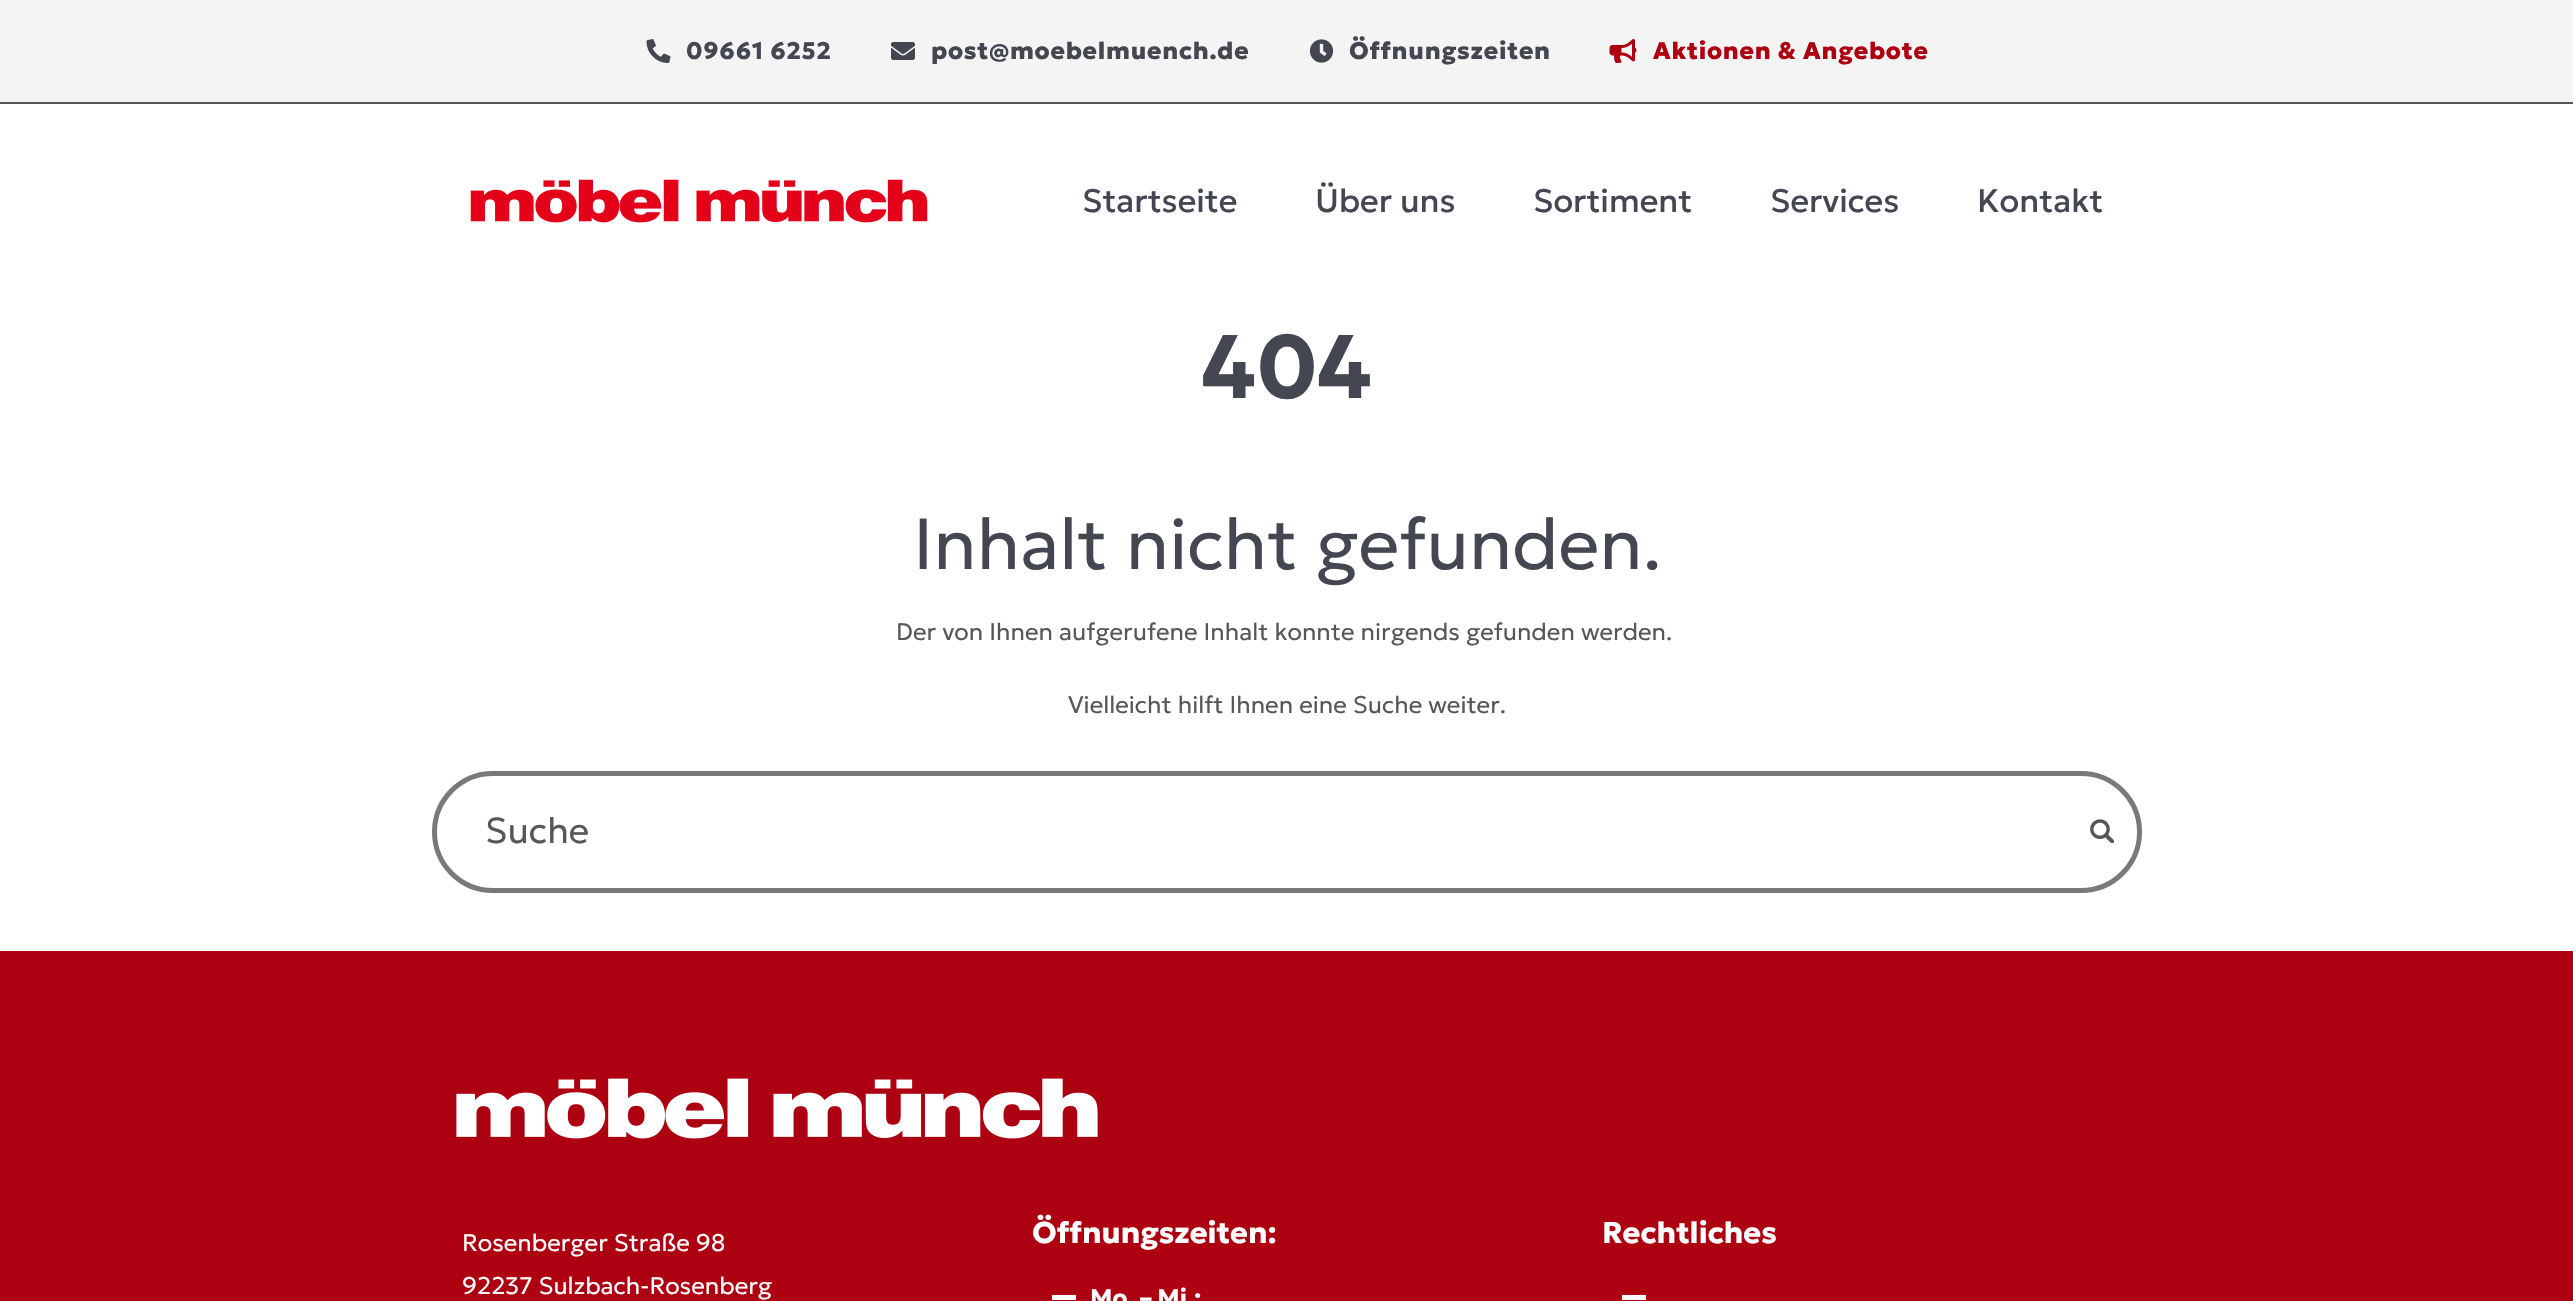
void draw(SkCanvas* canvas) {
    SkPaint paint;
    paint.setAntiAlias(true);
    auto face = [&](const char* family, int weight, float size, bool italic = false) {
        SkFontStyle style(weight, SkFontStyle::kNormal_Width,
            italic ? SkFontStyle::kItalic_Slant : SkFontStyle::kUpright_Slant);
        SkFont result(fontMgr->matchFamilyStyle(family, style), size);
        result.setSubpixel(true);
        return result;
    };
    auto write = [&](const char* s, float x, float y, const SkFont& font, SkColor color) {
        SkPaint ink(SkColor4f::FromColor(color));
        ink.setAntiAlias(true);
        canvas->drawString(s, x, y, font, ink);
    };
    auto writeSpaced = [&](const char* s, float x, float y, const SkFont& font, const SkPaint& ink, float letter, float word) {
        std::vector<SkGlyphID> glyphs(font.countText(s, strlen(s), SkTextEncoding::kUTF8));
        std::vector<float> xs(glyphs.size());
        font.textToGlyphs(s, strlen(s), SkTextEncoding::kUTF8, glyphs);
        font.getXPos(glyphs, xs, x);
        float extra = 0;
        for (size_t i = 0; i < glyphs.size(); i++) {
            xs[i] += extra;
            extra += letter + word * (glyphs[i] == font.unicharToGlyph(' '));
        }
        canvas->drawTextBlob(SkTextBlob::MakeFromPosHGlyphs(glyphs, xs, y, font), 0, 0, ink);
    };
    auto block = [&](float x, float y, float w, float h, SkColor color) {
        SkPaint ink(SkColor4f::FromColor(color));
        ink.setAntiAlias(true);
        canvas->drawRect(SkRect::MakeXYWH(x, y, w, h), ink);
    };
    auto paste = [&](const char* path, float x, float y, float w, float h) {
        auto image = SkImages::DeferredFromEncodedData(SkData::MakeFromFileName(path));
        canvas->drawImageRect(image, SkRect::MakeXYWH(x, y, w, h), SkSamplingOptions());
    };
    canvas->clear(SK_ColorWHITE);
    block(0, 0, 2573, 102, SkColorSetRGB(244, 244, 244));
    block(0, 102, 2573, 2, SkColorSetRGB(87, 87, 87));
    paste("pic1.png", 646, 39, 25, 24);
    auto kFont1 = face("Geologica", 800, 24);
    paint.setColor(SkColorSetRGB(68, 71, 81));
    writeSpaced("09661 6252", 686, 59, kFont1, paint, 0.75f, 0);
    paste("pic2.png", 891, 42, 24, 18);
    writeSpaced("post@moebelmuench.de", 931, 59, kFont1, paint, 0.75f, 0);
    paste("pic3.png", 1309, 39, 25, 24);
    writeSpaced("Öffnungszeiten", 1349, 59, kFont1, paint, 0.75f, 0);
    paste("pic4.png", 1609, 39, 28, 24);
    paint.setColor(SkColorSetRGB(173, 0, 17));
    writeSpaced("Aktionen & Angebote", 1653, 59, kFont1, paint, 0.75f, 0);
    paste("pic5.png", 470, 179, 458, 44);
    auto kFont2 = face("Geologica", 400, 32.5f);
    write("Startseite", 1082, 212, kFont2, SkColorSetRGB(68, 71, 81));
    write("Über uns", 1315, 212, kFont2, SkColorSetRGB(68, 71, 81));
    write("Sortiment", 1533, 212, kFont2, SkColorSetRGB(68, 71, 81));
    write("Services", 1770, 212, kFont2, SkColorSetRGB(68, 71, 81));
    write("Kontakt", 1977, 212, kFont2, SkColorSetRGB(68, 71, 81));
    auto kFont3 = face("Geologica", 700, 90);
    write("404", 1202, 398, kFont3, SkColorSetRGB(68, 71, 81));
    auto kFont4 = face("Geologica", 300, 72);
    write("Inhalt nicht gefunden.", 913, 569, kFont4, SkColorSetRGB(68, 71, 81));
    auto kFont5 = face("Geologica", 300, 24);
    write("Der von Ihnen aufgerufene Inhalt konnte nirgends gefunden werden.", 896, 640, kFont5, SkColorSetRGB(87, 87, 87));
    write("Vielleicht hilft Ihnen eine Suche weiter.", 1068, 713, kFont5, SkColorSetRGB(87, 87, 87));
    paint.setStyle(SkPaint::kStroke_Style);
    paint.setStrokeWidth(5);
    paint.setColor(SkColorSetRGB(121, 121, 121));
    canvas->drawRoundRect(SkRect::MakeXYWH(434.5f, 773.5f, 1705, 117), 58.5f, 58.5f, paint);
    auto kFont6 = face("Geologica", 300, 36);
    write("Suche", 485, 843, kFont6, SkColorSetRGB(87, 87, 87));
    paste("pic6.png", 2090, 819, 24, 24);
    block(0, 951, 2573, 350, SkColorSetRGB(173, 0, 17));
    paste("pic7.png", 456, 1078, 642, 61);
    write("Rosenberger Straße 98", 462, 1251, kFont5, SK_ColorWHITE);
    write("92237 Sulzbach-Rosenberg", 462, 1294, kFont5, SK_ColorWHITE);
    auto kFont7 = face("Geologica", 700, 30);
    write("Öffnungszeiten:", 1032, 1243, kFont7, SK_ColorWHITE);
    block(1052, 1295, 24, 5, SK_ColorWHITE);
    auto kFont8 = face("Geologica", 700, 24);
    write("Mo. – Mi.:", 1090, 1306, kFont8, SK_ColorWHITE);
    write("Rechtliches", 1602, 1243, kFont7, SK_ColorWHITE);
    block(1622, 1295, 24, 5, SK_ColorWHITE);
}
